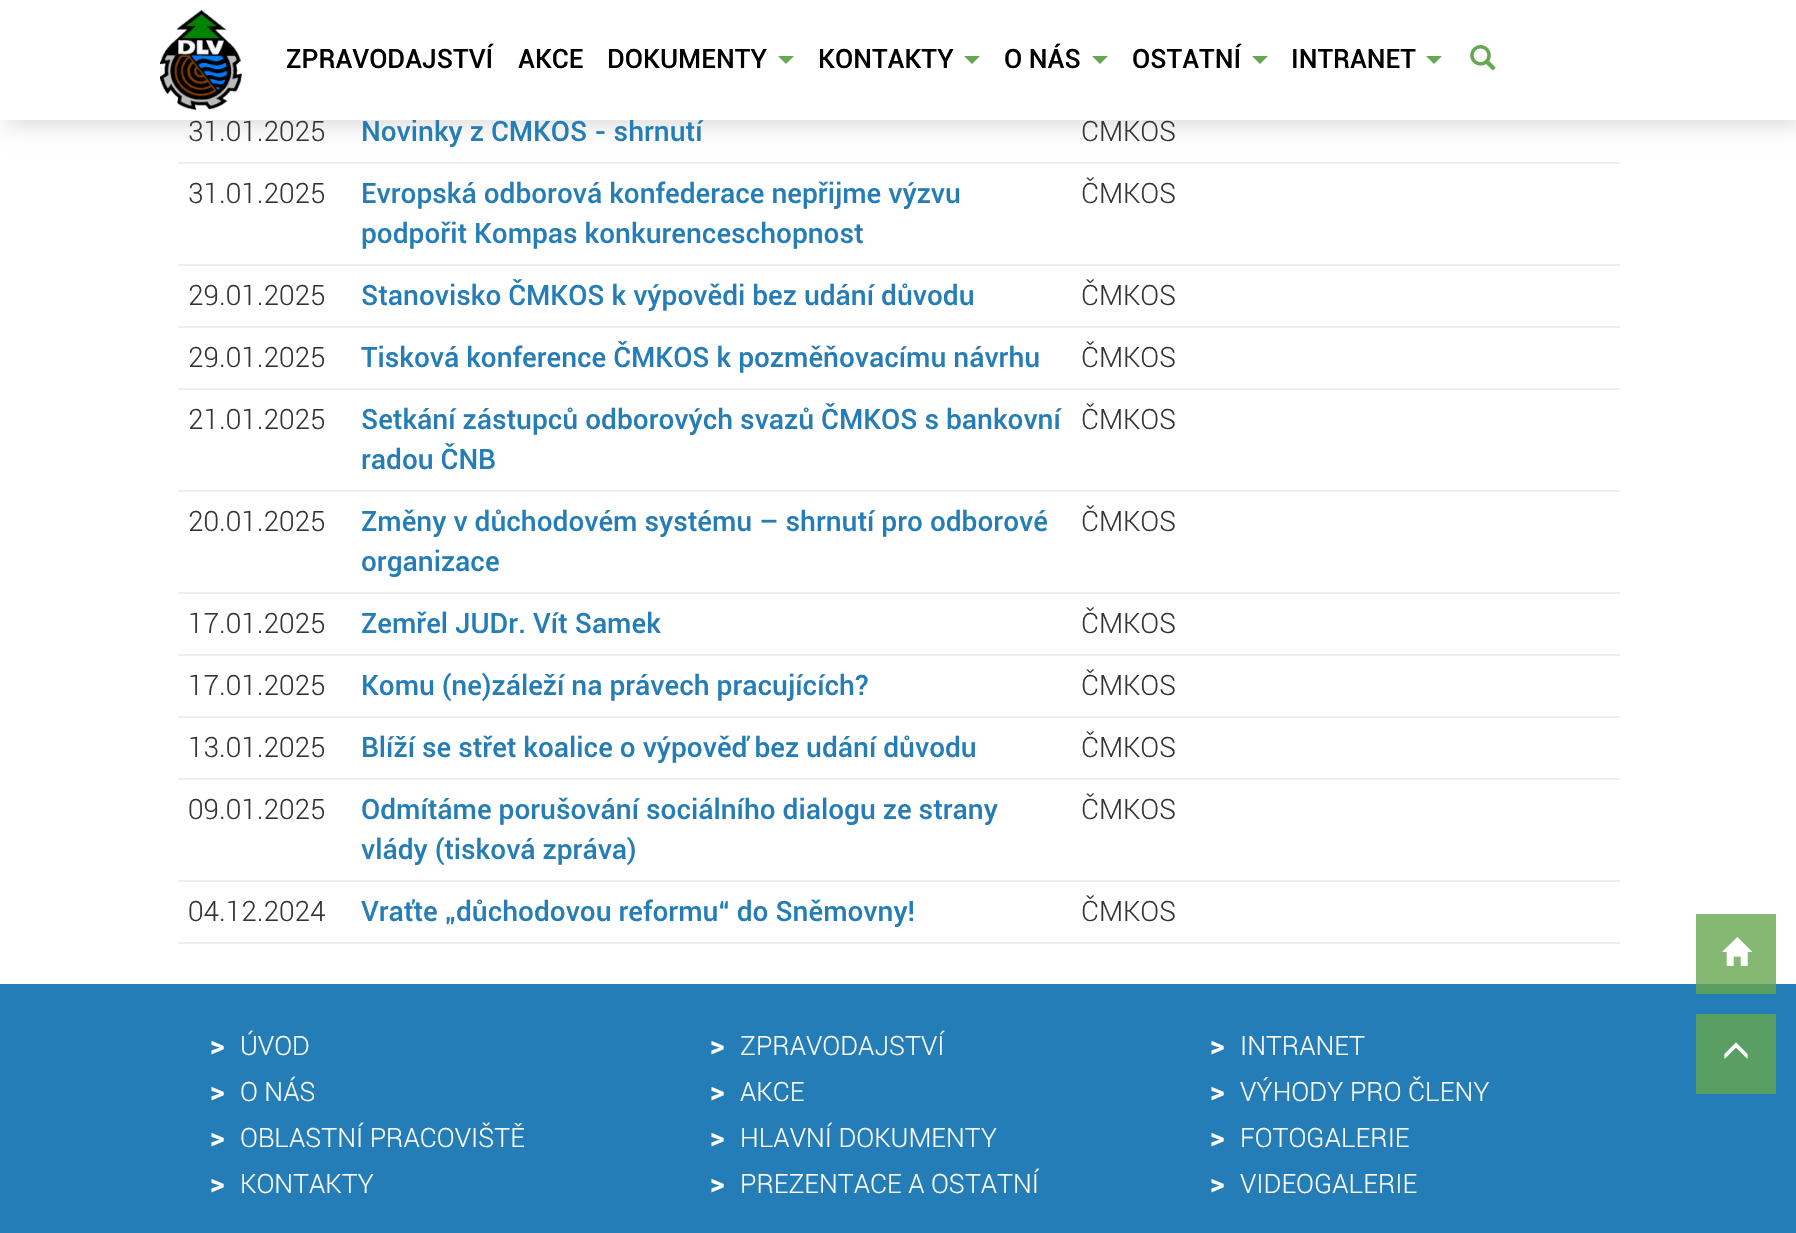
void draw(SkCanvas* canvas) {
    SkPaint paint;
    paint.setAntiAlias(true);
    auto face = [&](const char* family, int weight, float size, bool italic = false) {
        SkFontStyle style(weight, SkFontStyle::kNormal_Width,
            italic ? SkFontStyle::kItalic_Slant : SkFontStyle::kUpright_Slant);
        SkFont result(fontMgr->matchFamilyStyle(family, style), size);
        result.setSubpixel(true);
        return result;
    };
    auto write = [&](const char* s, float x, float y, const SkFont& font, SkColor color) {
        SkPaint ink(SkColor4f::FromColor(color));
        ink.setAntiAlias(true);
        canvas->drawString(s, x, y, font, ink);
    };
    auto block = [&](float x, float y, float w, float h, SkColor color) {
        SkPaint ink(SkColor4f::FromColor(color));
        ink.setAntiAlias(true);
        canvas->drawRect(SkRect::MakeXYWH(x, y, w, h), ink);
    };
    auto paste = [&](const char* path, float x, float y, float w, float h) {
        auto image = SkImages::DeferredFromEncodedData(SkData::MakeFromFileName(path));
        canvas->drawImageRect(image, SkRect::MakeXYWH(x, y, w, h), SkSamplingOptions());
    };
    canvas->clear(SK_ColorWHITE);
    block(1696, 914, 80, 70, SkColorSetRGB(133, 185, 115));
    paint.setColor(SkColorSetRGB(221, 221, 221));
    paint.setMaskFilter(SkMaskFilter::MakeBlur(kNormal_SkBlurStyle, 10));
    canvas->drawRect(SkRect::MakeXYWH(6, 6, 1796, 120), paint);
    paint.setMaskFilter(nullptr);
    auto kFont1 = face("Roboto", 500, 28);
    write("Novinky z ČMKOS - shrnutí", 361, 141, kFont1, SkColorSetRGB(36, 125, 182));
    auto kFont2 = face("Roboto", 300, 28);
    write("ČMKOS", 1081, 141, kFont2, SkColorSetRGB(51, 51, 51));
    block(0, 0, 1796, 120, SK_ColorWHITE);
    paste("pic1.png", 160, 10, 82, 101);
    auto kFont3 = face("Roboto", 500, 26.6f);
    write("ZPRAVODAJSTVÍ", 286, 68, kFont3, SK_ColorBLACK);
    write("AKCE", 518, 68, kFont3, SK_ColorBLACK);
    write("DOKUMENTY", 607, 68, kFont3, SK_ColorBLACK);
    paint.setColor(SkColorSetRGB(102, 168, 80));
    canvas->drawPath(SkPathBuilder().moveTo(778, 56).lineTo(794, 56).lineTo(786, 64).close().detach(), paint);
    write("KONTAKTY", 818, 68, kFont3, SK_ColorBLACK);
    canvas->drawPath(SkPathBuilder().moveTo(964, 56).lineTo(980, 56).lineTo(972, 64).close().detach(), paint);
    write("O NÁS", 1004, 68, kFont3, SK_ColorBLACK);
    canvas->drawPath(SkPathBuilder().moveTo(1092, 56).lineTo(1108, 56).lineTo(1100, 64).close().detach(), paint);
    write("OSTATNÍ", 1132, 68, kFont3, SK_ColorBLACK);
    canvas->drawPath(SkPathBuilder().moveTo(1252, 56).lineTo(1268, 56).lineTo(1260, 64).close().detach(), paint);
    write("INTRANET", 1291, 68, kFont3, SK_ColorBLACK);
    canvas->drawPath(SkPathBuilder().moveTo(1426, 56).lineTo(1442, 56).lineTo(1434, 64).close().detach(), paint);
    paste("pic2.png", 1470, 45, 26, 26);
    write("31.01.2025", 188, 141, kFont2, SkColorSetRGB(51, 51, 51));
    block(178, 162, 1442, 2, SkColorSetRGB(238, 238, 238));
    write("31.01.2025", 188, 203, kFont2, SkColorSetRGB(51, 51, 51));
    write("Evropská odborová konfederace nepřijme výzvu", 361, 203, kFont1, SkColorSetRGB(36, 125, 182));
    write("podpořit Kompas konkurenceschopnost", 361, 243, kFont1, SkColorSetRGB(36, 125, 182));
    write("ČMKOS", 1081, 203, kFont2, SkColorSetRGB(51, 51, 51));
    block(178, 264, 1442, 2, SkColorSetRGB(238, 238, 238));
    write("29.01.2025", 188, 305, kFont2, SkColorSetRGB(51, 51, 51));
    write("Stanovisko ČMKOS k výpovědi bez udání důvodu", 361, 305, kFont1, SkColorSetRGB(36, 125, 182));
    write("ČMKOS", 1081, 305, kFont2, SkColorSetRGB(51, 51, 51));
    block(178, 326, 1442, 2, SkColorSetRGB(238, 238, 238));
    write("29.01.2025", 188, 367, kFont2, SkColorSetRGB(51, 51, 51));
    write("Tisková konference ČMKOS k pozměňovacímu návrhu", 361, 367, kFont1, SkColorSetRGB(36, 125, 182));
    write("ČMKOS", 1081, 367, kFont2, SkColorSetRGB(51, 51, 51));
    block(178, 388, 1442, 2, SkColorSetRGB(238, 238, 238));
    write("21.01.2025", 188, 429, kFont2, SkColorSetRGB(51, 51, 51));
    write("Setkání zástupců odborových svazů ČMKOS s bankovní", 361, 429, kFont1, SkColorSetRGB(36, 125, 182));
    write("radou ČNB", 361, 469, kFont1, SkColorSetRGB(36, 125, 182));
    write("ČMKOS", 1081, 429, kFont2, SkColorSetRGB(51, 51, 51));
    block(178, 490, 1442, 2, SkColorSetRGB(238, 238, 238));
    write("20.01.2025", 188, 531, kFont2, SkColorSetRGB(51, 51, 51));
    write("Změny v důchodovém systému – shrnutí pro odborové", 361, 531, kFont1, SkColorSetRGB(36, 125, 182));
    write("organizace", 361, 571, kFont1, SkColorSetRGB(36, 125, 182));
    write("ČMKOS", 1081, 531, kFont2, SkColorSetRGB(51, 51, 51));
    block(178, 592, 1442, 2, SkColorSetRGB(238, 238, 238));
    write("17.01.2025", 188, 633, kFont2, SkColorSetRGB(51, 51, 51));
    write("Zemřel JUDr. Vít Samek", 361, 633, kFont1, SkColorSetRGB(36, 125, 182));
    write("ČMKOS", 1081, 633, kFont2, SkColorSetRGB(51, 51, 51));
    block(178, 654, 1442, 2, SkColorSetRGB(238, 238, 238));
    write("17.01.2025", 188, 695, kFont2, SkColorSetRGB(51, 51, 51));
    write("Komu (ne)záleží na právech pracujících?", 361, 695, kFont1, SkColorSetRGB(36, 125, 182));
    write("ČMKOS", 1081, 695, kFont2, SkColorSetRGB(51, 51, 51));
    block(178, 716, 1442, 2, SkColorSetRGB(238, 238, 238));
    write("13.01.2025", 188, 757, kFont2, SkColorSetRGB(51, 51, 51));
    write("Blíží se střet koalice o výpověď bez udání důvodu", 361, 757, kFont1, SkColorSetRGB(36, 125, 182));
    write("ČMKOS", 1081, 757, kFont2, SkColorSetRGB(51, 51, 51));
    block(178, 778, 1442, 2, SkColorSetRGB(238, 238, 238));
    write("09.01.2025", 188, 819, kFont2, SkColorSetRGB(51, 51, 51));
    write("Odmítáme porušování sociálního dialogu ze strany", 361, 819, kFont1, SkColorSetRGB(36, 125, 182));
    write("vlády (tisková zpráva)", 361, 859, kFont1, SkColorSetRGB(36, 125, 182));
    write("ČMKOS", 1081, 819, kFont2, SkColorSetRGB(51, 51, 51));
    block(178, 880, 1442, 2, SkColorSetRGB(238, 238, 238));
    write("04.12.2024", 188, 921, kFont2, SkColorSetRGB(51, 51, 51));
    write("Vraťte „důchodovou reformu“ do Sněmovny!", 361, 921, kFont1, SkColorSetRGB(36, 125, 182));
    write("ČMKOS", 1081, 921, kFont2, SkColorSetRGB(51, 51, 51));
    block(178, 942, 1442, 2, SkColorSetRGB(238, 238, 238));
    paste("pic3.png", 1722, 937, 30, 29);
    block(0, 984, 1796, 249, SkColorSetRGB(36, 125, 182));
    block(1696, 984, 80, 10, SkColorSetRGB(89, 159, 100));
    auto kFont4 = face("Roboto", 700, 28);
    write(">", 210, 1055, kFont4, SK_ColorWHITE);
    auto kFont5 = face("Roboto", 300, 26.6f);
    write("ÚVOD", 240, 1055, kFont5, SK_ColorWHITE);
    write(">", 210, 1101, kFont4, SK_ColorWHITE);
    write("O NÁS", 240, 1101, kFont5, SK_ColorWHITE);
    write(">", 210, 1147, kFont4, SK_ColorWHITE);
    write("OBLASTNÍ PRACOVIŠTĚ", 240, 1147, kFont5, SK_ColorWHITE);
    write(">", 210, 1193, kFont4, SK_ColorWHITE);
    write("KONTAKTY", 240, 1193, kFont5, SK_ColorWHITE);
    write(">", 710, 1055, kFont4, SK_ColorWHITE);
    write("ZPRAVODAJSTVÍ", 740, 1055, kFont5, SK_ColorWHITE);
    write(">", 710, 1101, kFont4, SK_ColorWHITE);
    write("AKCE", 740, 1101, kFont5, SK_ColorWHITE);
    write(">", 710, 1147, kFont4, SK_ColorWHITE);
    write("HLAVNÍ DOKUMENTY", 740, 1147, kFont5, SK_ColorWHITE);
    write(">", 710, 1193, kFont4, SK_ColorWHITE);
    write("PREZENTACE A OSTATNÍ", 740, 1193, kFont5, SK_ColorWHITE);
    write(">", 1210, 1055, kFont4, SK_ColorWHITE);
    write("INTRANET", 1240, 1055, kFont5, SK_ColorWHITE);
    write(">", 1210, 1101, kFont4, SK_ColorWHITE);
    write("VÝHODY PRO ČLENY", 1240, 1101, kFont5, SK_ColorWHITE);
    write(">", 1210, 1147, kFont4, SK_ColorWHITE);
    write("FOTOGALERIE", 1240, 1147, kFont5, SK_ColorWHITE);
    write(">", 1210, 1193, kFont4, SK_ColorWHITE);
    write("VIDEOGALERIE", 1240, 1193, kFont5, SK_ColorWHITE);
    block(1696, 1014, 80, 80, SkColorSetRGB(89, 159, 100));
    paste("pic4.png", 1724, 1042, 24, 17);
}
